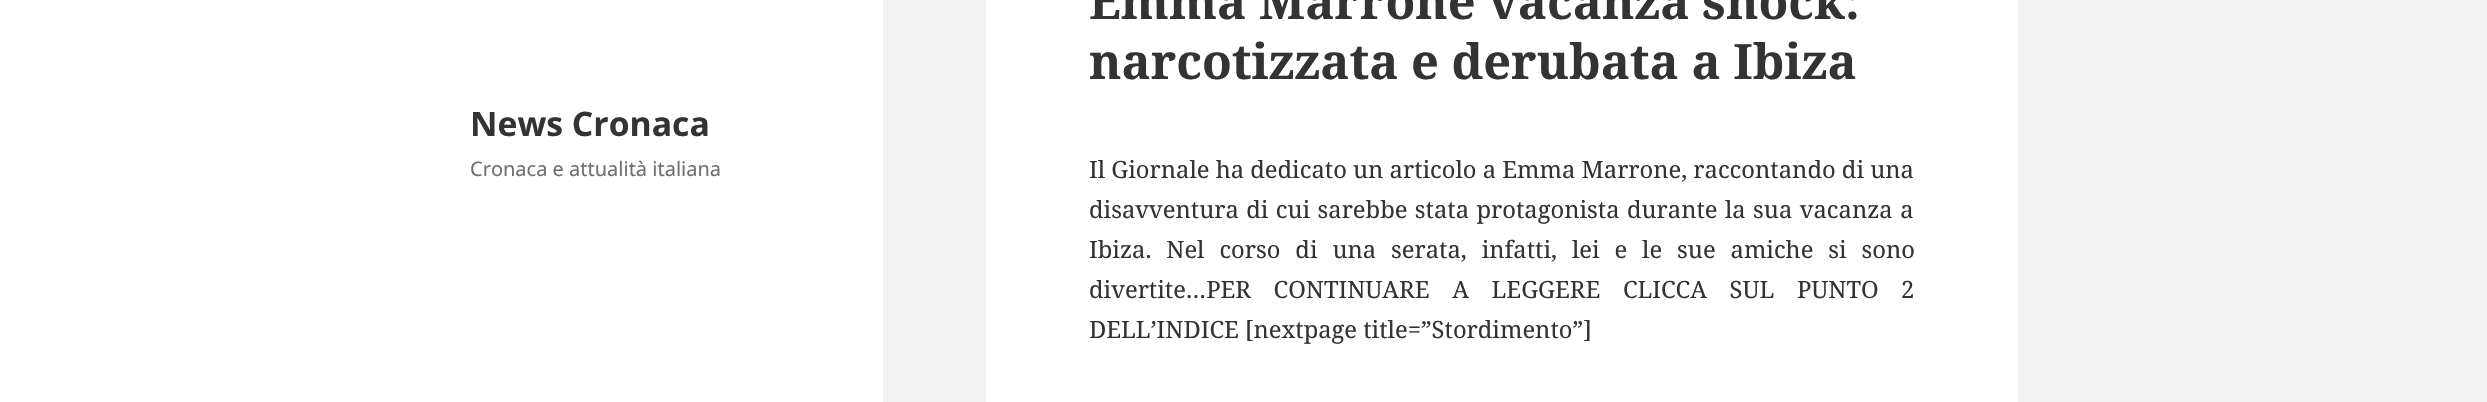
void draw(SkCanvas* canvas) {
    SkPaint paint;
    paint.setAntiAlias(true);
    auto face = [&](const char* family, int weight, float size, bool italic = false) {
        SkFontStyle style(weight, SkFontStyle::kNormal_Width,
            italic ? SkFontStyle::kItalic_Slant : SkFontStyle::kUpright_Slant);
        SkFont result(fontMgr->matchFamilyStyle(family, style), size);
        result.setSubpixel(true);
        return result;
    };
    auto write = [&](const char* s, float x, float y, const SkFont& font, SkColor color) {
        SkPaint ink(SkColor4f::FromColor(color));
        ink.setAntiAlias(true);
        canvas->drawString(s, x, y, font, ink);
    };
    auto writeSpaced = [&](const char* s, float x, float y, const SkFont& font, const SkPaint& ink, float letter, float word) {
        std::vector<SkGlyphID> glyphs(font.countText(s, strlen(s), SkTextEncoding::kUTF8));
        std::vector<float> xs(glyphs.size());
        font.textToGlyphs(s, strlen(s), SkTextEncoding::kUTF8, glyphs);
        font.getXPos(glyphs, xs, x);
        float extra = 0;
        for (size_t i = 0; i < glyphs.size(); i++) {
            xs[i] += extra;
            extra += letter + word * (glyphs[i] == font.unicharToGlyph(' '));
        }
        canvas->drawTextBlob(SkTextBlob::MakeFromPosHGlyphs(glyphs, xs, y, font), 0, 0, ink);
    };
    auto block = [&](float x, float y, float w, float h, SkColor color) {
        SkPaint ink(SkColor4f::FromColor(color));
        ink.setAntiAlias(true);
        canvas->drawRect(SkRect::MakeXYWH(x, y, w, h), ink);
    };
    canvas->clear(SkColorSetRGB(241, 241, 241));
    block(0, 0, 883, 402, SK_ColorWHITE);
    auto kFont1 = face("Noto Sans", 700, 33.75f);
    write("News Cronaca", 470, 136, kFont1, SkColorSetRGB(51, 51, 51));
    auto kFont2 = face("Noto Sans", 400, 20);
    write("Cronaca e attualità italiana", 470, 176, kFont2, SkColorSetRGB(112, 112, 112));
    block(986, 0, 1032, 402, SK_ColorWHITE);
    auto kFont3 = face("Noto Serif", 700, 48.75f);
    write("Emma Marrone vacanza shock:", 1089, 19, kFont3, SkColorSetRGB(51, 51, 51));
    write("narcotizzata e derubata a Ibiza", 1089, 79, kFont3, SkColorSetRGB(51, 51, 51));
    auto kFont4 = face("Noto Serif", 400, 23.75f);
    write("Il Giornale ha dedicato un articolo a Emma Marrone, raccontando di una", 1089, 178, kFont4, SkColorSetRGB(51, 51, 51));
    paint.setColor(SkColorSetRGB(51, 51, 51));
    writeSpaced("disavventura di cui sarebbe stata protagonista durante la sua vacanza a", 1089, 218, kFont4, paint, 0, 1.25f);
    writeSpaced("Ibiza. Nel corso di una serata, infatti, lei e le sue amiche si sono", 1089, 258, kFont4, paint, 0, 8.75f);
    writeSpaced("divertite…PER CONTINUARE A LEGGERE CLICCA SUL PUNTO 2", 1089, 298, kFont4, paint, 0, 16.5f);
    write("DELL’INDICE [nextpage title=”Stordimento”]", 1089, 338, kFont4, SkColorSetRGB(51, 51, 51));
}
